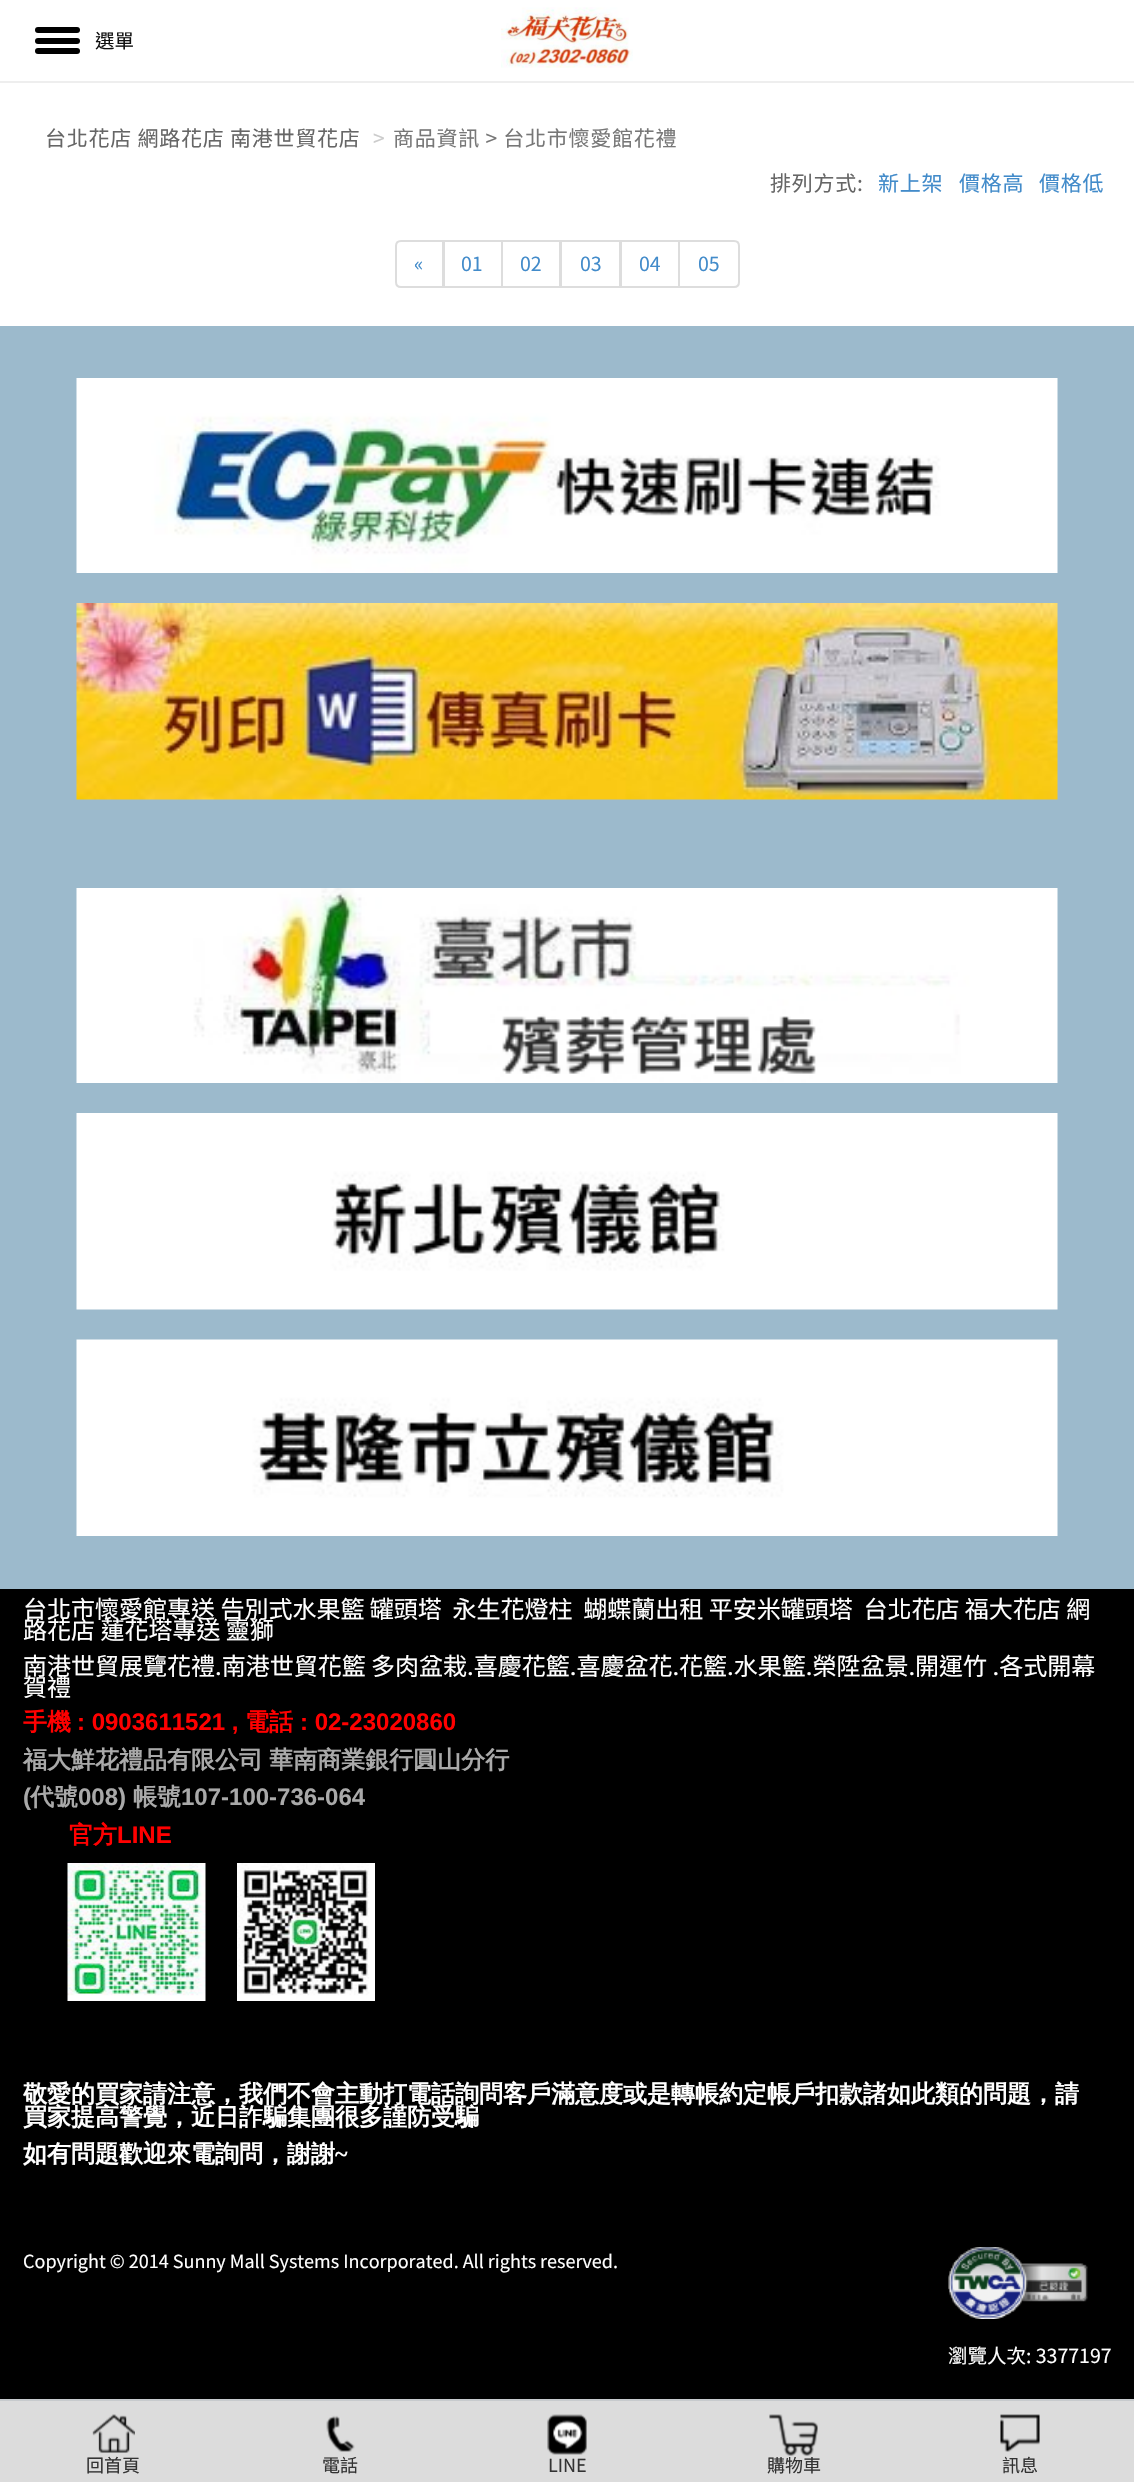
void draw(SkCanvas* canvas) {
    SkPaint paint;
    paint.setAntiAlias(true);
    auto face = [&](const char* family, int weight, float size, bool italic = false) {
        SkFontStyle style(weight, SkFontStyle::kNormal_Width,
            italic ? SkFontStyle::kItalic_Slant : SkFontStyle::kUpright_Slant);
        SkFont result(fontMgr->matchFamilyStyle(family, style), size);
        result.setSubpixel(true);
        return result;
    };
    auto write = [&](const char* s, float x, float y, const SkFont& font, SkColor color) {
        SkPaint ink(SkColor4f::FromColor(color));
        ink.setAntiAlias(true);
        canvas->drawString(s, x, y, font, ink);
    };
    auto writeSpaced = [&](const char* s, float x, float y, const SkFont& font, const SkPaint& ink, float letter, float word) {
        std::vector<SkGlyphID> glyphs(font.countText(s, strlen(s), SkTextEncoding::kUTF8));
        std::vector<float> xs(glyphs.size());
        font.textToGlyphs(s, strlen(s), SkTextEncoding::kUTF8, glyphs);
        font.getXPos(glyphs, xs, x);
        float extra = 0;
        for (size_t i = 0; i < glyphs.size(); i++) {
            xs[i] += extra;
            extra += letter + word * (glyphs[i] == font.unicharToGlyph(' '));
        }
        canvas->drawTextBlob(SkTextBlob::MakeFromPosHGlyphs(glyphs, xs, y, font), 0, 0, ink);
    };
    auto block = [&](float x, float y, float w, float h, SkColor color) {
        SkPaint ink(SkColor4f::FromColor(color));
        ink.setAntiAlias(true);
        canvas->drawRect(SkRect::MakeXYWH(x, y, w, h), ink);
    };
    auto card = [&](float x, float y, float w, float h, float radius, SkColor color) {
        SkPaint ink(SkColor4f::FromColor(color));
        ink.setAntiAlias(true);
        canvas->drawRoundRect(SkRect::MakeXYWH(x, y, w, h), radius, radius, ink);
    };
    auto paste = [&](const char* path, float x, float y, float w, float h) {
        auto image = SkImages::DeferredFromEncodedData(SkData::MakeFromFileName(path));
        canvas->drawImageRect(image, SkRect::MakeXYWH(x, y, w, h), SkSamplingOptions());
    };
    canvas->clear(SK_ColorWHITE);
    block(0, 81, 1134, 2, SkColorSetRGB(238, 238, 238));
    paste("pic1.png", 501, 7, 132, 61);
    card(35, 38, 45, 6, 3, SK_ColorBLACK);
    card(35, 27, 45, 6, 3, SK_ColorBLACK);
    card(35, 48, 45, 6, 3, SK_ColorBLACK);
    auto kFont1 = face("Noto Sans TC", 400, 19.5f);
    write("選單", 95, 48, kFont1, SkColorSetRGB(17, 17, 17));
    auto kFont2 = face("Noto Sans TC", 400, 21);
    paint.setColor(SkColorSetRGB(102, 102, 102));
    writeSpaced("台北花店 網路花店 南港世貿花店", 45, 146, kFont2, paint, 0.75f, 0);
    paint.setColor(SkColorSetRGB(204, 204, 204));
    writeSpaced(">", 373, 146, kFont2, paint, 0.75f, 0);
    paint.setColor(SkColorSetRGB(119, 119, 119));
    writeSpaced("商品資訊 > 台北市懷愛館花禮", 393, 146, kFont2, paint, 0.75f, 0);
    paint.setColor(SkColorSetRGB(102, 102, 102));
    writeSpaced("排列方式:", 770, 191, kFont2, paint, 0.75f, 0);
    paint.setColor(SkColorSetRGB(66, 139, 202));
    writeSpaced("新上架", 878, 191, kFont2, paint, 0.75f, 0);
    writeSpaced("價格高", 959, 191, kFont2, paint, 0.75f, 0);
    writeSpaced("價格低", 1039, 191, kFont2, paint, 0.75f, 0);
    paint.setStyle(SkPaint::kStroke_Style);
    paint.setStrokeWidth(2);
    paint.setColor(SkColorSetRGB(221, 221, 221));
    canvas->drawPath(SkPathBuilder().moveTo(401, 241).lineTo(443, 241).lineTo(443, 287).lineTo(401, 287).cubicTo(398, 287, 396, 285, 396, 282).lineTo(396, 246).cubicTo(396, 243, 398, 241, 401, 241).close().detach(), paint);
    write("«", 414, 271, kFont1, SkColorSetRGB(66, 139, 202));
    canvas->drawRect(SkRect::MakeXYWH(444, 241, 58, 46), paint);
    write("01", 461, 271, kFont1, SkColorSetRGB(66, 139, 202));
    canvas->drawRect(SkRect::MakeXYWH(502, 241, 58, 46), paint);
    write("02", 520, 271, kFont1, SkColorSetRGB(66, 139, 202));
    canvas->drawRect(SkRect::MakeXYWH(561, 241, 59, 46), paint);
    write("03", 580, 271, kFont1, SkColorSetRGB(66, 139, 202));
    canvas->drawRect(SkRect::MakeXYWH(621, 241, 58, 46), paint);
    write("04", 639, 271, kFont1, SkColorSetRGB(66, 139, 202));
    paint.setStyle(SkPaint::kFill_Style);
    paint.setColor(SK_ColorWHITE);
    canvas->drawPath(SkPathBuilder().moveTo(679, 241).lineTo(734, 241).cubicTo(737, 241, 739, 243, 739, 246).lineTo(739, 282).cubicTo(739, 285, 737, 287, 734, 287).lineTo(679, 287).close().detach(), paint);
    paint.setStyle(SkPaint::kStroke_Style);
    paint.setColor(SkColorSetRGB(221, 221, 221));
    canvas->drawPath(SkPathBuilder().moveTo(679, 241).lineTo(734, 241).cubicTo(737, 241, 739, 243, 739, 246).lineTo(739, 282).cubicTo(739, 285, 737, 287, 734, 287).lineTo(679, 287).close().detach(), paint);
    write("05", 698, 271, kFont1, SkColorSetRGB(66, 139, 202));
    block(0, 326, 1134, 1263, SkColorSetRGB(156, 186, 204));
    paste("pic2.png", 76, 378, 982, 195);
    paste("pic3.png", 76, 603, 982, 197);
    paste("pic4.png", 76, 888, 982, 195);
    paste("pic5.png", 76, 1113, 982, 197);
    paste("pic6.png", 76, 1339, 982, 197);
    block(0, 1589, 1134, 810, SK_ColorBLACK);
    auto kFont3 = face("Noto Sans TC", 400, 24);
    write("台北市懷愛館專送 告別式水果籃 罐頭塔  永生花燈柱  蝴蝶蘭出租 平安米罐頭塔  台北花店 福大花店 網", 23, 1618, kFont3, SK_ColorWHITE);
    write("路花店 蓮花塔專送 靈獅", 23, 1639, kFont3, SK_ColorWHITE);
    write("南港世貿展覽花禮.南港世貿花籃 多肉盆栽.喜慶花籃.喜慶盆花.花籃.水果籃.榮陞盆景.開運竹 .各式開幕", 23, 1675, kFont3, SK_ColorWHITE);
    write("賀禮", 23, 1696, kFont3, SK_ColorWHITE);
    auto kFont4 = face("WenQuanYi Zen Hei", 700, 24);
    write("手機", 23, 1730, kFont4, SkColorSetRGB(255, 0, 0));
    auto kFont5 = face("Liberation Sans", 700, 24);
    write(": 0903611521 ,", 77, 1730, kFont5, SkColorSetRGB(255, 0, 0));
    write("電話", 245, 1730, kFont4, SkColorSetRGB(255, 0, 0));
    write(": 02-23020860", 300, 1730, kFont5, SkColorSetRGB(255, 0, 0));
    paint.setStyle(SkPaint::kFill_Style);
    paint.setColor(SkColorSetRGB(169, 169, 169));
    writeSpaced("福大鮮花禮品有限公司 華南商業銀行圓山分行", 23, 1768, kFont4, paint, 0, -1);
    write("(", 23, 1805, kFont5, SkColorSetRGB(169, 169, 169));
    write("代號", 30, 1805, kFont4, SkColorSetRGB(169, 169, 169));
    write("008)", 78, 1805, kFont5, SkColorSetRGB(169, 169, 169));
    write("帳號", 133, 1805, kFont4, SkColorSetRGB(169, 169, 169));
    write("107-100-736-064", 181, 1805, kFont5, SkColorSetRGB(169, 169, 169));
    write("官方", 69, 1843, kFont4, SkColorSetRGB(255, 0, 0));
    write("LINE", 117, 1843, kFont5, SkColorSetRGB(255, 0, 0));
    paste("pic7.png", 67, 1863, 139, 138);
    paste("pic8.png", 237, 1863, 138, 138);
    write("敬愛的買家請注意，我們不會主動打電話詢問客戶滿意度或是轉帳約定帳戶扣款諸如此類的問題，請", 23, 2102, kFont4, SK_ColorWHITE);
    write("買家提高警覺，近日詐騙集團很多謹防受騙", 23, 2125, kFont4, SK_ColorWHITE);
    write("如有問題歡迎來電詢問，謝謝", 23, 2162, kFont4, SK_ColorWHITE);
    auto kFont6 = face("Liberation Serif", 700, 24);
    write("~", 335, 2162, kFont6, SK_ColorWHITE);
    auto kFont7 = face("Noto Sans TC", 400, 18);
    write("Copyright © 2014 Sunny Mall Systems Incorporated. All rights reserved.", 23, 2268, kFont7, SK_ColorWHITE);
    paste("pic9.png", 948, 2247, 140, 72);
    write("瀏覽人次: 3377197", 948, 2363, kFont1, SK_ColorWHITE);
    block(0, 2401, 1134, 81, SkColorSetRGB(220, 220, 220));
    block(0, 2399, 1134, 2, SkColorSetRGB(199, 202, 205));
    paste("pic10.png", 92, 2414, 43, 39);
    write("回首頁", 86, 2472, kFont7, SkColorSetRGB(51, 51, 51));
    paste("pic11.png", 326, 2415, 29, 37);
    write("電話", 322, 2472, kFont7, SkColorSetRGB(51, 51, 51));
    paste("pic12.png", 547, 2414, 40, 41);
    write("LINE", 548, 2472, kFont7, SkColorSetRGB(51, 51, 51));
    paste("pic13.png", 769, 2414, 49, 42);
    write("購物車", 767, 2472, kFont7, SkColorSetRGB(51, 51, 51));
    paste("pic14.png", 1000, 2414, 40, 38);
    write("訊息", 1002, 2472, kFont7, SkColorSetRGB(51, 51, 51));
}
